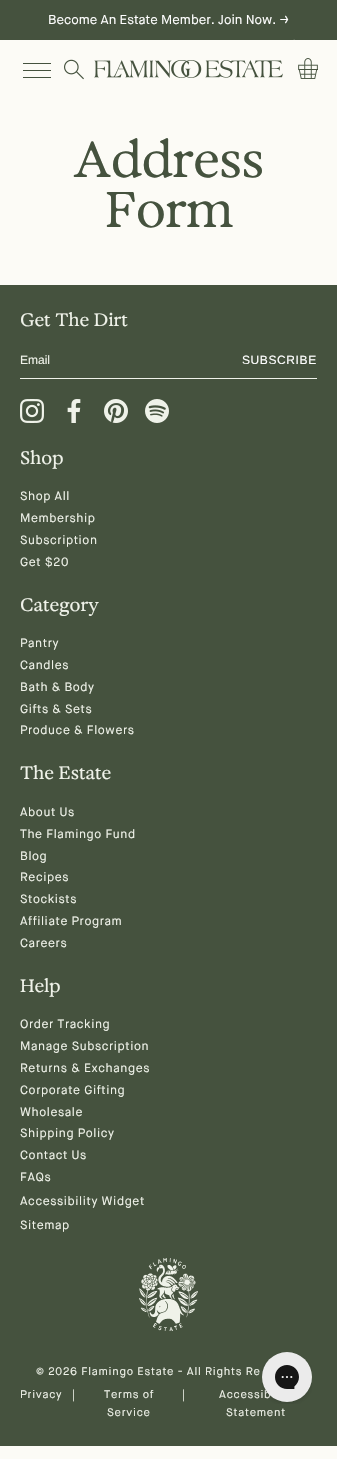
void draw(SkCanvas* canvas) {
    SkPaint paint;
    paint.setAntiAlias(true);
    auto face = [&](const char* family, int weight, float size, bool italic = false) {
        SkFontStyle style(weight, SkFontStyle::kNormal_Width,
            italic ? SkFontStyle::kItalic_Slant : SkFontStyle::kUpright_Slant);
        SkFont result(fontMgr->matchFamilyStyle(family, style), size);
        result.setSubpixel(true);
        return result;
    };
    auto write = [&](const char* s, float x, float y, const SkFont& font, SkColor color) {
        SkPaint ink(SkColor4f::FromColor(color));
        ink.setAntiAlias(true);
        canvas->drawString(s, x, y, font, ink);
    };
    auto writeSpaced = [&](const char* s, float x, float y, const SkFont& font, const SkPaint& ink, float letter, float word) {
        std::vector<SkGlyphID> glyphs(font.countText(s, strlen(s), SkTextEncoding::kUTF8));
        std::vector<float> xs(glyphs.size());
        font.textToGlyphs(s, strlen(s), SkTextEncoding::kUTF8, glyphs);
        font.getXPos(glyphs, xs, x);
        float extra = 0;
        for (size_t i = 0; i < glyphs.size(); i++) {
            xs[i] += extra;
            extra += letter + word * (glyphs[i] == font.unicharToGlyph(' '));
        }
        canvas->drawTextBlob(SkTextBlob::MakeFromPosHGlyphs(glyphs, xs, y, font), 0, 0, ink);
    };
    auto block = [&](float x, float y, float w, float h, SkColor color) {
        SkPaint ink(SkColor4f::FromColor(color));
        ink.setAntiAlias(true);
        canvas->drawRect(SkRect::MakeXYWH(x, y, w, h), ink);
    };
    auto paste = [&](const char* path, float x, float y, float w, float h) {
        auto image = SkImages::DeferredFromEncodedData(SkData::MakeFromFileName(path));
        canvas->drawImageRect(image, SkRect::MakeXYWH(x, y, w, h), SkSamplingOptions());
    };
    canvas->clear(SkColorSetRGB(252, 251, 246));
    block(0, 0, 337, 40, SkColorSetRGB(69, 82, 62));
    auto kFont1 = face("Maison Neue", 400, 13);
    write("Become An Estate Member. Join Now. →", 48, 24, kFont1, SK_ColorWHITE);
    paint.setColor(SkColorSetRGB(252, 251, 246));
    canvas->drawPath(SkPathBuilder().moveTo(294, 39.5f).lineTo(309, 54.5f).lineTo(308, 55).lineTo(293.5f, 40.5f).close().detach(), paint);
    block(23, 63, 28, 1, SkColorSetRGB(69, 82, 62));
    block(23, 70, 28, 1, SkColorSetRGB(69, 82, 62));
    block(23, 77, 28, 1, SkColorSetRGB(69, 82, 62));
    paste("pic1.png", 64, 59, 20, 21);
    paste("pic2.png", 94, 60, 189, 18);
    paste("pic3.png", 298, 58, 20, 21);
    auto kFont2 = face("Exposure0", 400, 50);
    paint.setColor(SkColorSetRGB(69, 82, 62));
    writeSpaced("Address", 73, 177, kFont2, paint, -0.75f, 0);
    writeSpaced("Form", 105, 227, kFont2, paint, -0.75f, 0);
    block(0, 285, 337, 1161, SkColorSetRGB(69, 82, 62));
    auto kFont3 = face("Exposure0", 400, 18);
    write("Get The Dirt", 20, 326, kFont3, SkColorSetRGB(239, 242, 233));
    block(20, 378, 297, 1, SkColorSetRGB(239, 242, 233));
    auto kFont4 = face("Liberation Sans", 400, 12);
    write("Email", 20, 364, kFont4, SkColorSetRGB(239, 242, 233));
    paint.setColor(SK_ColorWHITE);
    writeSpaced("SUBSCRIBE", 242, 364, kFont4, paint, 0.6f, 0);
    paste("pic4.png", 20, 399, 24, 24);
    paste("pic5.png", 67, 399, 14, 24);
    paste("pic6.png", 104, 399, 24, 24);
    paste("pic7.png", 145, 399, 24, 24);
    write("Shop", 20, 464, kFont3, SkColorSetRGB(239, 242, 233));
    auto kFont5 = face("Maison Neue", 400, 12);
    paint.setColor(SkColorSetRGB(239, 242, 233));
    writeSpaced("Shop All", 20, 500, kFont5, paint, 0.6f, 0);
    writeSpaced("Membership", 20, 522, kFont5, paint, 0.6f, 0);
    writeSpaced("Subscription", 20, 544, kFont5, paint, 0.6f, 0);
    writeSpaced("Get $20", 20, 566, kFont5, paint, 0.6f, 0);
    write("Category", 20, 611, kFont3, SkColorSetRGB(239, 242, 233));
    writeSpaced("Pantry", 20, 647, kFont5, paint, 0.6f, 0);
    writeSpaced("Candles", 20, 669, kFont5, paint, 0.6f, 0);
    writeSpaced("Bath & Body", 20, 691, kFont5, paint, 0.6f, 0);
    writeSpaced("Gifts & Sets", 20, 713, kFont5, paint, 0.6f, 0);
    writeSpaced("Produce & Flowers", 20, 734, kFont5, paint, 0.6f, 0);
    write("The Estate", 20, 779, kFont3, SkColorSetRGB(239, 242, 233));
    writeSpaced("About Us", 20, 816, kFont5, paint, 0.6f, 0);
    writeSpaced("The Flamingo Fund", 20, 838, kFont5, paint, 0.6f, 0);
    writeSpaced("Blog", 20, 860, kFont5, paint, 0.6f, 0);
    writeSpaced("Recipes", 20, 881, kFont5, paint, 0.6f, 0);
    writeSpaced("Stockists", 20, 903, kFont5, paint, 0.6f, 0);
    writeSpaced("Affiliate Program", 20, 925, kFont5, paint, 0.6f, 0);
    writeSpaced("Careers", 20, 947, kFont5, paint, 0.6f, 0);
    write("Help", 20, 992, kFont3, SkColorSetRGB(239, 242, 233));
    writeSpaced("Order Tracking", 20, 1028, kFont5, paint, 0.6f, 0);
    writeSpaced("Manage Subscription", 20, 1050, kFont5, paint, 0.6f, 0);
    writeSpaced("Returns & Exchanges", 20, 1072, kFont5, paint, 0.6f, 0);
    writeSpaced("Corporate Gifting", 20, 1094, kFont5, paint, 0.6f, 0);
    writeSpaced("Wholesale", 20, 1116, kFont5, paint, 0.6f, 0);
    writeSpaced("Shipping Policy", 20, 1137, kFont5, paint, 0.6f, 0);
    writeSpaced("Contact Us", 20, 1159, kFont5, paint, 0.6f, 0);
    writeSpaced("FAQs", 20, 1181, kFont5, paint, 0.6f, 0);
    writeSpaced("Accessibility Widget", 20, 1205, kFont5, paint, 0.6f, 0);
    writeSpaced("Sitemap", 20, 1229, kFont5, paint, 0.6f, 0);
    paste("pic8.png", 139, 1258, 59, 73);
    auto kFont6 = face("Maison Neue", 400, 11);
    writeSpaced("© 2026 Flamingo Estate - All Rights Re", 36, 1375, kFont6, paint, 0.75f, 0);
    writeSpaced("Privacy", 20, 1398, kFont6, paint, 0.75f, 0);
    writeSpaced("|", 72, 1398, kFont6, paint, 0.75f, 0);
    writeSpaced("Terms of", 104, 1398, kFont6, paint, 0.75f, 0);
    writeSpaced("Service", 107, 1416, kFont6, paint, 0.75f, 0);
    writeSpaced("|", 182, 1398, kFont6, paint, 0.75f, 0);
    writeSpaced("Accessib", 219, 1398, kFont6, paint, 0.75f, 0);
    writeSpaced("Statement", 226, 1416, kFont6, paint, 0.75f, 0);
    paste("pic9.png", 262, 1352, 50, 52);
}
